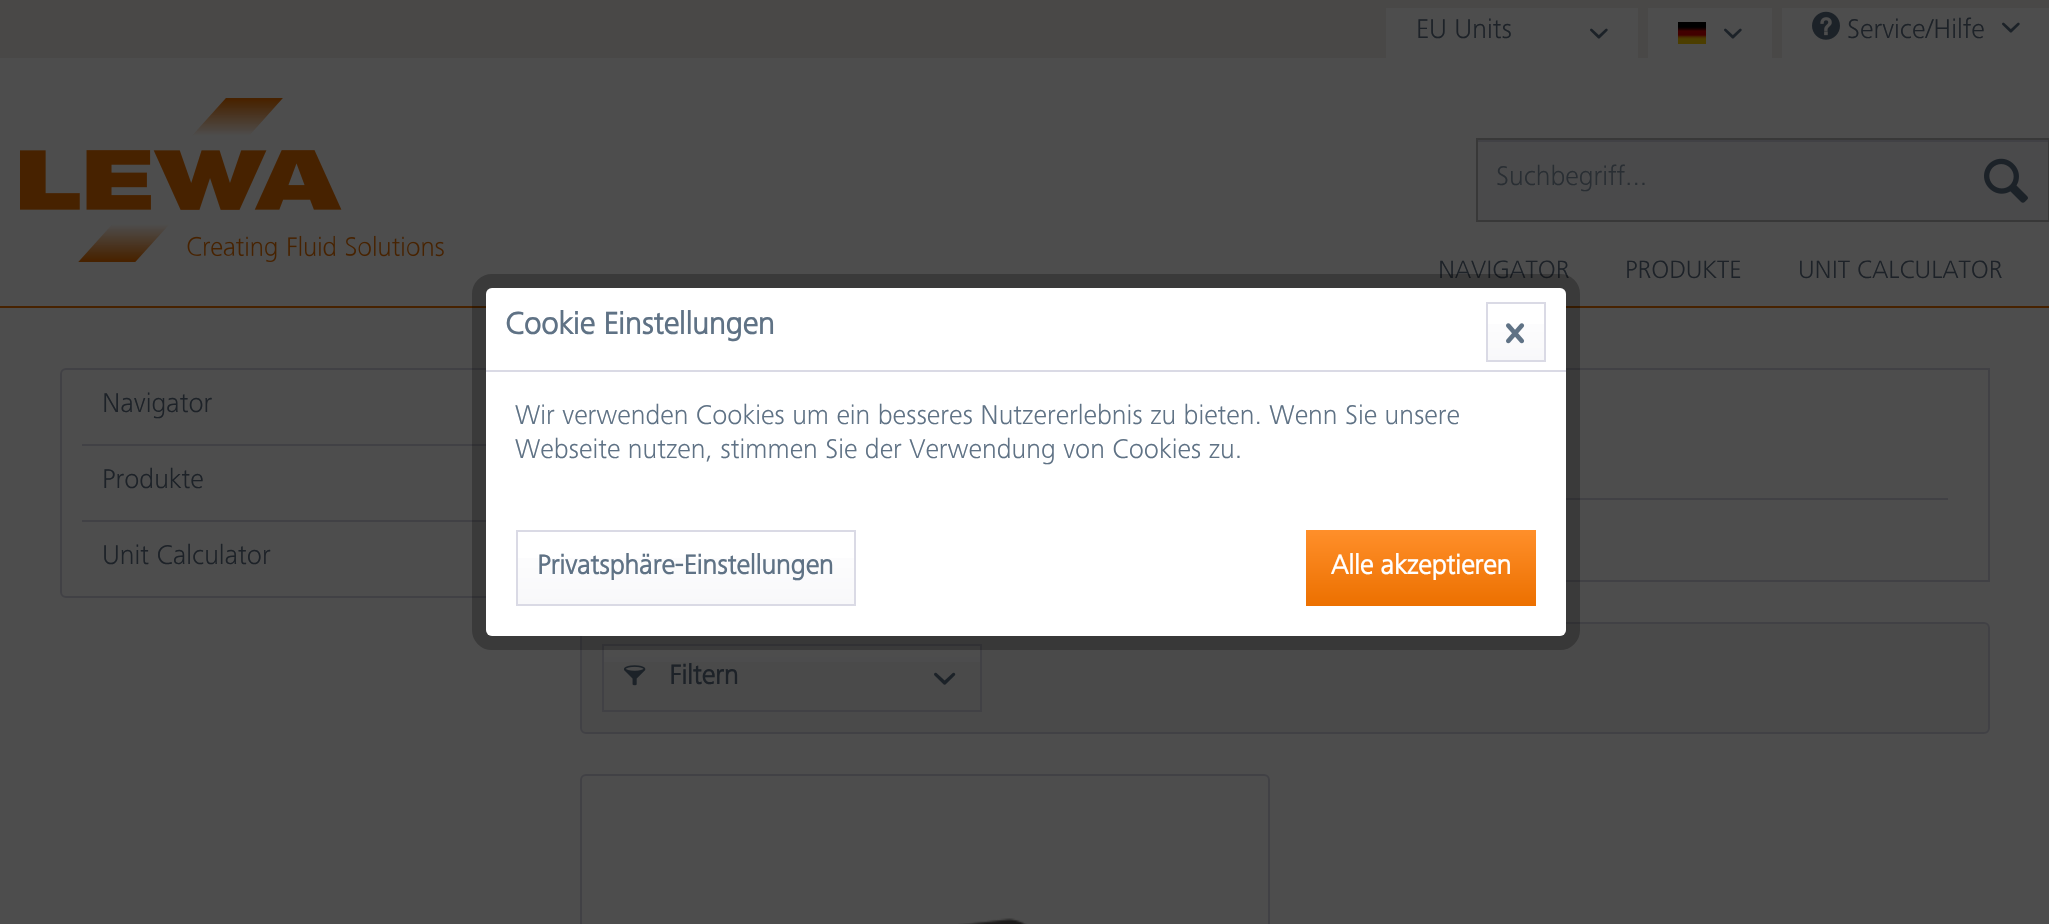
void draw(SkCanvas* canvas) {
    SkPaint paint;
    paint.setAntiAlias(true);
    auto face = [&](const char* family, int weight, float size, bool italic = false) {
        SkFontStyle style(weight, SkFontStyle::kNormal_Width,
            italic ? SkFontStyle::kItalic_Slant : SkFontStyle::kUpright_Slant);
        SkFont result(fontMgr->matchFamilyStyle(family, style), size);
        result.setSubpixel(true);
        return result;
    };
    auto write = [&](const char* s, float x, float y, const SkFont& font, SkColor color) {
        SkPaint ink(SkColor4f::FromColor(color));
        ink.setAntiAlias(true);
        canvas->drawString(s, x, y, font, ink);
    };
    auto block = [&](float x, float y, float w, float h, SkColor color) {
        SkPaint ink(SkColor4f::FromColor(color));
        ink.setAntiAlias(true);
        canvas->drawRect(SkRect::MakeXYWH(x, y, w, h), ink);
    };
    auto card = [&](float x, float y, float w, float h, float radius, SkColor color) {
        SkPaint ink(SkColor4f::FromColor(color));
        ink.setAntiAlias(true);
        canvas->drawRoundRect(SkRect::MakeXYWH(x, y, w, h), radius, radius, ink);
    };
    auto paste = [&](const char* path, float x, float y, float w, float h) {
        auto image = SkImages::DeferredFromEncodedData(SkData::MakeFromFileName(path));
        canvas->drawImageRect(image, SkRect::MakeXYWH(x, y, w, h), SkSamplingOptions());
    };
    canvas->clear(SkColorSetRGB(77, 77, 77));
    block(0, 0, 2049, 58, SkColorSetRGB(73, 72, 71));
    block(1386, 8, 252, 50, SkColorSetRGB(77, 77, 77));
    auto kFont1 = face("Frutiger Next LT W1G", 300, 28);
    write("EU Units", 1416, 38, kFont1, SkColorSetRGB(29, 34, 40));
    paste("pic1.png", 1590, 28, 18, 11);
    block(1648, 8, 124, 50, SkColorSetRGB(77, 77, 77));
    paste("pic2.png", 1678, 22, 28, 22);
    paste("pic1.png", 1724, 28, 18, 11);
    block(1782, 8, 267, 50, SkColorSetRGB(77, 77, 77));
    paste("pic3.png", 1812, 11, 28, 29);
    write("Service/Hilfe", 1847, 38, kFont1, SkColorSetRGB(29, 34, 40));
    paste("pic1.png", 2002, 22, 18, 11);
    paste("pic4.png", 20, 98, 424, 164);
    paint.setStyle(SkPaint::kStroke_Style);
    paint.setStrokeWidth(2);
    paint.setColor(SkColorSetRGB(56, 56, 56));
    canvas->drawRect(SkRect::MakeXYWH(1477, 139, 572, 82), paint);
    block(1478, 142, 570, 78, SkColorSetRGB(74, 74, 75));
    block(1478, 140, 570, 2, SkColorSetRGB(65, 65, 69));
    write("Suchbegriff...", 1496, 185, kFont1, SkColorSetRGB(41, 46, 51));
    paste("pic5.png", 1984, 158, 44, 45);
    block(0, 306, 2049, 2, SkColorSetRGB(71, 34, 0));
    auto kFont2 = face("Frutiger Next LT W1G", 300, 26);
    write("NAVIGATOR", 1438, 278, kFont2, SkColorSetRGB(29, 34, 40));
    write("PRODUKTE", 1625, 278, kFont2, SkColorSetRGB(29, 34, 40));
    write("UNIT CALCULATOR", 1798, 278, kFont2, SkColorSetRGB(29, 34, 40));
    paint.setColor(SkColorSetRGB(65, 65, 69));
    canvas->drawRoundRect(SkRect::MakeXYWH(61, 369, 458, 228), 5, 5, paint);
    block(82, 444, 404, 2, SkColorSetRGB(65, 65, 69));
    write("Navigator", 102, 412, kFont1, SkColorSetRGB(29, 34, 40));
    block(82, 520, 404, 2, SkColorSetRGB(65, 65, 69));
    write("Produkte", 102, 488, kFont1, SkColorSetRGB(29, 34, 40));
    write("Unit Calculator", 102, 564, kFont1, SkColorSetRGB(29, 34, 40));
    canvas->drawRect(SkRect::MakeXYWH(581, 369, 1408, 212), paint);
    block(1566, 498, 382, 2, SkColorSetRGB(65, 65, 69));
    paint.setStyle(SkPaint::kFill_Style);
    paint.setColor(SkColorSetRGB(74, 74, 74));
    canvas->drawRoundRect(SkRect::MakeXYWH(581, 623, 1408, 110), 5, 5, paint);
    paint.setStyle(SkPaint::kStroke_Style);
    paint.setColor(SkColorSetRGB(65, 65, 69));
    canvas->drawRoundRect(SkRect::MakeXYWH(581, 623, 1408, 110), 5, 5, paint);
    paint.setStyle(SkPaint::kFill_Style);
    {
        const SkColor colors[] = {SkColorSetRGB(77, 77, 77), SkColorSetRGB(74, 74, 75)};
        const float stops[] = {0, 1};
        const SkPoint ends[] = {{792, 646}, {792, 710}};
        paint.setShader(SkGradientShader::MakeLinear(ends, colors, stops, 2, SkTileMode::kClamp));
        paint.setAlpha(255);
    }
    canvas->drawRect(SkRect::MakeXYWH(604, 646, 376, 16), paint);
    paint.setStyle(SkPaint::kStroke_Style);
    paint.setShader(nullptr);
    paint.setColor(SkColorSetRGB(65, 65, 69));
    canvas->drawRect(SkRect::MakeXYWH(603, 645, 378, 66), paint);
    paste("pic6.png", 624, 665, 22, 21);
    auto kFont3 = face("Frutiger Next LT W1G", 700, 28);
    write("Filtern", 669, 684, kFont3, SkColorSetRGB(29, 34, 40));
    paste("pic7.png", 934, 672, 22, 13);
    canvas->drawRoundRect(SkRect::MakeXYWH(581, 775, 688, 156), 5, 5, paint);
    paste("pic8.png", 958, 918, 69, 6);
    paint.setStrokeWidth(14);
    paint.setColor(SkColorSetARGB(64, 0, 0, 0));
    canvas->drawRoundRect(SkRect::MakeXYWH(479, 281, 1094, 362), 13, 13, paint);
    card(486, 288, 1080, 348, 6, SK_ColorWHITE);
    block(486, 370, 1080, 2, SkColorSetRGB(218, 218, 229));
    auto kFont4 = face("Frutiger Next LT W1G", 700, 32);
    write("Cookie Einstellungen", 505, 334, kFont4, SkColorSetRGB(95, 114, 133));
    paint.setStyle(SkPaint::kFill_Style);
    {
        const SkColor colors[] = {SK_ColorWHITE, SkColorSetRGB(248, 248, 250)};
        const float stops[] = {0, 1};
        const SkPoint ends[] = {{1516, 304}, {1516, 360}};
        paint.setShader(SkGradientShader::MakeLinear(ends, colors, stops, 2, SkTileMode::kClamp));
        paint.setAlpha(255);
    }
    canvas->drawRect(SkRect::MakeXYWH(1488, 324, 56, 36), paint);
    paint.setStyle(SkPaint::kStroke_Style);
    paint.setStrokeWidth(2);
    paint.setShader(nullptr);
    paint.setColor(SkColorSetRGB(218, 218, 229));
    canvas->drawRect(SkRect::MakeXYWH(1487, 303, 58, 58), paint);
    paste("pic9.png", 1506, 323, 19, 21);
    write("Wir verwenden Cookies um ein besseres Nutzererlebnis zu bieten. Wenn Sie unsere", 515, 424, kFont1, SkColorSetRGB(95, 114, 133));
    write("Webseite nutzen, stimmen Sie der Verwendung von Cookies zu.", 515, 458, kFont1, SkColorSetRGB(95, 114, 133));
    paint.setStyle(SkPaint::kFill_Style);
    {
        const SkColor colors[] = {SK_ColorWHITE, SkColorSetRGB(248, 248, 250)};
        const float stops[] = {0, 1};
        const SkPoint ends[] = {{686, 532}, {686, 604}};
        paint.setShader(SkGradientShader::MakeLinear(ends, colors, stops, 2, SkTileMode::kClamp));
        paint.setAlpha(255);
    }
    canvas->drawRect(SkRect::MakeXYWH(518, 558, 336, 46), paint);
    paint.setStyle(SkPaint::kStroke_Style);
    paint.setShader(nullptr);
    paint.setColor(SkColorSetRGB(218, 218, 229));
    canvas->drawRect(SkRect::MakeXYWH(517, 531, 338, 74), paint);
    write("Privatsphäre-Einstellungen", 537, 574, kFont3, SkColorSetRGB(95, 114, 133));
    paint.setStyle(SkPaint::kFill_Style);
    {
        const SkColor colors[] = {SkColorSetRGB(255, 143, 42), SkColorSetRGB(236, 112, 0)};
        const float stops[] = {0, 1};
        const SkPoint ends[] = {{1421, 530}, {1421, 606}};
        paint.setShader(SkGradientShader::MakeLinear(ends, colors, stops, 2, SkTileMode::kClamp));
        paint.setAlpha(255);
    }
    canvas->drawRect(SkRect::MakeXYWH(1306, 530, 230, 76), paint);
    write("Alle akzeptieren", 1331, 574, kFont3, SK_ColorWHITE);
}
